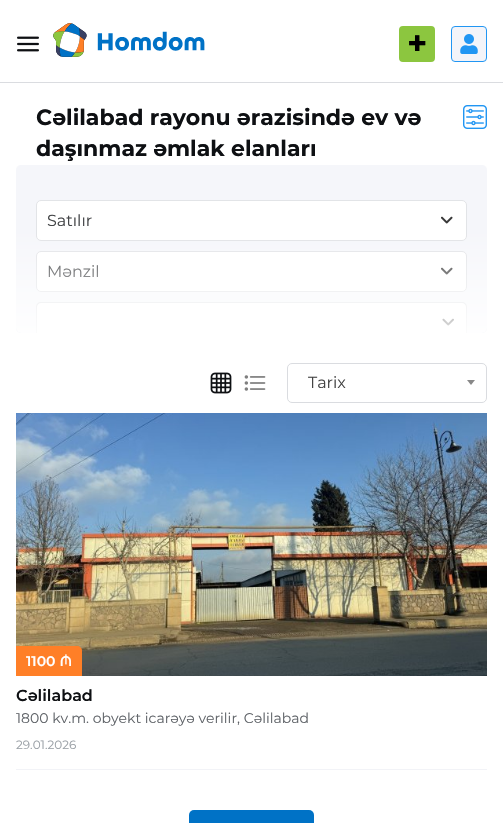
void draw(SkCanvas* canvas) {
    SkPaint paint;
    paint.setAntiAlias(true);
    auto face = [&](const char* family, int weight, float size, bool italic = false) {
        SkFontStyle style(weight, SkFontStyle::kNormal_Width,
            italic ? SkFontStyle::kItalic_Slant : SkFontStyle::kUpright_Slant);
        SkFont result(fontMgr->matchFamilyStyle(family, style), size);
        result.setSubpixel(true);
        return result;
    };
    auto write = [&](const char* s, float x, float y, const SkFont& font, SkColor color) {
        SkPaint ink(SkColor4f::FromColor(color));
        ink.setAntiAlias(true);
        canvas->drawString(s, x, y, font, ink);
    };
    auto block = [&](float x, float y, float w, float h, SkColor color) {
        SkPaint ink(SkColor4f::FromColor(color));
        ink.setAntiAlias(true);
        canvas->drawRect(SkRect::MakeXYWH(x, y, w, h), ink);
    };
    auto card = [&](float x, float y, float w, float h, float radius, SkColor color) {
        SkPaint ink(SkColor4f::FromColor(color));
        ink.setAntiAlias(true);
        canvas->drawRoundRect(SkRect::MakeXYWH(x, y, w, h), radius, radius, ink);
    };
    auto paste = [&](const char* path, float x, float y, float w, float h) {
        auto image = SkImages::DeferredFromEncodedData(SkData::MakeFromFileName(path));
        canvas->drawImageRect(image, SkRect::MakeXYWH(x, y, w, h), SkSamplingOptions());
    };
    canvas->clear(SK_ColorWHITE);
    block(0, 82, 503, 1, SkColorSetRGB(218, 220, 224));
    paste("pic1.png", 17, 36, 22, 16);
    paste("pic2.png", 53, 23, 152, 34);
    paint.setColor(SkColorSetRGB(140, 198, 63));
    canvas->drawRoundRect(SkRect::MakeXYWH(400, 27, 34, 34), 3, 3, paint);
    paint.setStyle(SkPaint::kStroke_Style);
    paint.setStrokeWidth(2);
    canvas->drawRoundRect(SkRect::MakeXYWH(400, 27, 34, 34), 3, 3, paint);
    auto kFont1 = face("Montserrat", 700, 34);
    write("+", 407, 55, kFont1, SK_ColorBLACK);
    paint.setStyle(SkPaint::kFill_Style);
    paint.setColor(SkColorSetRGB(243, 244, 249));
    canvas->drawRoundRect(SkRect::MakeXYWH(451.5f, 26.5f, 35, 35), 3.5f, 3.5f, paint);
    paint.setStyle(SkPaint::kStroke_Style);
    paint.setStrokeWidth(1);
    paint.setColor(SkColorSetRGB(33, 150, 243));
    canvas->drawRoundRect(SkRect::MakeXYWH(451.5f, 26.5f, 35, 35), 3.5f, 3.5f, paint);
    paste("pic3.png", 460, 34, 18, 20);
    auto kFont2 = face("Montserrat", 700, 22);
    write("Cəlilabad rayonu ərazisində ev və", 36, 125, kFont2, SkColorSetRGB(14, 16, 19));
    write("daşınmaz əmlak elanları", 36, 156, kFont2, SkColorSetRGB(14, 16, 19));
    paste("pic4.png", 463, 105, 24, 24);
    card(16, 165, 471, 168, 5, SkColorSetRGB(243, 244, 249));
    paint.setStyle(SkPaint::kFill_Style);
    paint.setColor(SK_ColorWHITE);
    canvas->drawRoundRect(SkRect::MakeXYWH(36.5f, 200.5f, 430, 40), 4.5f, 4.5f, paint);
    paint.setStyle(SkPaint::kStroke_Style);
    paint.setColor(SkColorSetRGB(218, 220, 224));
    canvas->drawRoundRect(SkRect::MakeXYWH(36.5f, 200.5f, 430, 40), 4.5f, 4.5f, paint);
    auto kFont3 = face("Montserrat", 400, 16);
    write("Satılır", 47, 226, kFont3, SkColorSetRGB(14, 16, 19));
    paste("pic5.png", 441, 216, 12, 8);
    paint.setStyle(SkPaint::kFill_Style);
    paint.setColor(SK_ColorWHITE);
    canvas->drawRoundRect(SkRect::MakeXYWH(36.5f, 251.5f, 430, 40), 4.5f, 4.5f, paint);
    paint.setStyle(SkPaint::kStroke_Style);
    paint.setColor(SkColorSetRGB(218, 220, 224));
    canvas->drawRoundRect(SkRect::MakeXYWH(36.5f, 251.5f, 430, 40), 4.5f, 4.5f, paint);
    write("Mənzil", 47, 277, kFont3, SkColorSetRGB(14, 16, 19));
    paste("pic5.png", 441, 267, 12, 8);
    paint.setStyle(SkPaint::kFill_Style);
    paint.setColor(SK_ColorWHITE);
    canvas->drawPath(SkPathBuilder().moveTo(41, 302).lineTo(462, 302).cubicTo(465, 302, 467, 304, 467, 307).lineTo(467, 333).lineTo(36, 333).lineTo(36, 307).cubicTo(36, 304, 38, 302, 41, 302).close().detach(), paint);
    paint.setColor(SkColorSetRGB(218, 220, 224));
    canvas->drawPath(SkPathBuilder().moveTo(41, 302).cubicTo(38, 302, 36, 304, 36, 307).lineTo(36, 333).lineTo(37, 333).lineTo(37, 307).cubicTo(37, 305, 39, 303, 41, 303).lineTo(462, 303).cubicTo(464, 303, 466, 305, 466, 307).lineTo(466, 333).lineTo(467, 333).lineTo(467, 307).cubicTo(467, 304, 465, 302, 462, 302).close().detach(), paint);
    paste("pic6.png", 442, 318, 12, 8);
    {
        const SkColor colors[] = {SkColorSetARGB(224, 255, 255, 255), SkColorSetARGB(56, 255, 255, 255)};
        const float stops[] = {0, 0.6f};
        const SkPoint ends[] = {{252, 333}, {252, 165}};
        paint.setShader(SkGradientShader::MakeLinear(ends, colors, stops, 2, SkTileMode::kClamp));
        paint.setAlpha(255);
    }
    canvas->drawRoundRect(SkRect::MakeXYWH(16, 165, 471, 168), 5, 5, paint);
    paste("pic7.png", 210, 372, 22, 22);
    paste("pic8.png", 244, 375, 22, 16);
    paint.setStyle(SkPaint::kStroke_Style);
    paint.setShader(nullptr);
    paint.setColor(SkColorSetRGB(218, 220, 224));
    canvas->drawRoundRect(SkRect::MakeXYWH(287.5f, 363.5f, 199, 39), 4.5f, 4.5f, paint);
    write("Tarix", 308, 388, kFont3, SkColorSetRGB(68, 68, 68));
    paint.setStyle(SkPaint::kFill_Style);
    paint.setColor(SkColorSetRGB(136, 136, 136));
    canvas->drawPath(SkPathBuilder().moveTo(467, 380).lineTo(475, 380).lineTo(471, 385).close().detach(), paint);
    block(16, 769, 471, 1, SkColorSetRGB(242, 243, 247));
    paste("pic9.png", 16, 413, 471, 263);
    paint.setColor(SkColorSetRGB(255, 127, 39));
    canvas->drawPath(SkPathBuilder().moveTo(16, 646).lineTo(77, 646).cubicTo(80, 646, 82, 648, 82, 651).lineTo(82, 676).lineTo(16, 676).close().detach(), paint);
    auto kFont4 = face("Montserrat", 600, 14);
    write("1100 ₼", 26, 666, kFont4, SK_ColorWHITE);
    auto kFont5 = face("Montserrat", 600, 16);
    write("Cəlilabad", 16, 701, kFont5, SkColorSetRGB(14, 16, 19));
    auto kFont6 = face("Montserrat", 400, 14);
    write("1800 kv.m. obyekt icarəyə verilir, Cəlilabad", 16, 723, kFont6, SkColorSetRGB(95, 99, 104));
    auto kFont7 = face("Montserrat", 400, 12);
    write("29.01.2026", 16, 749, kFont7, SkColorSetRGB(154, 160, 166));
    card(189, 810, 125, 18, 5, SkColorSetRGB(0, 114, 198));
}
